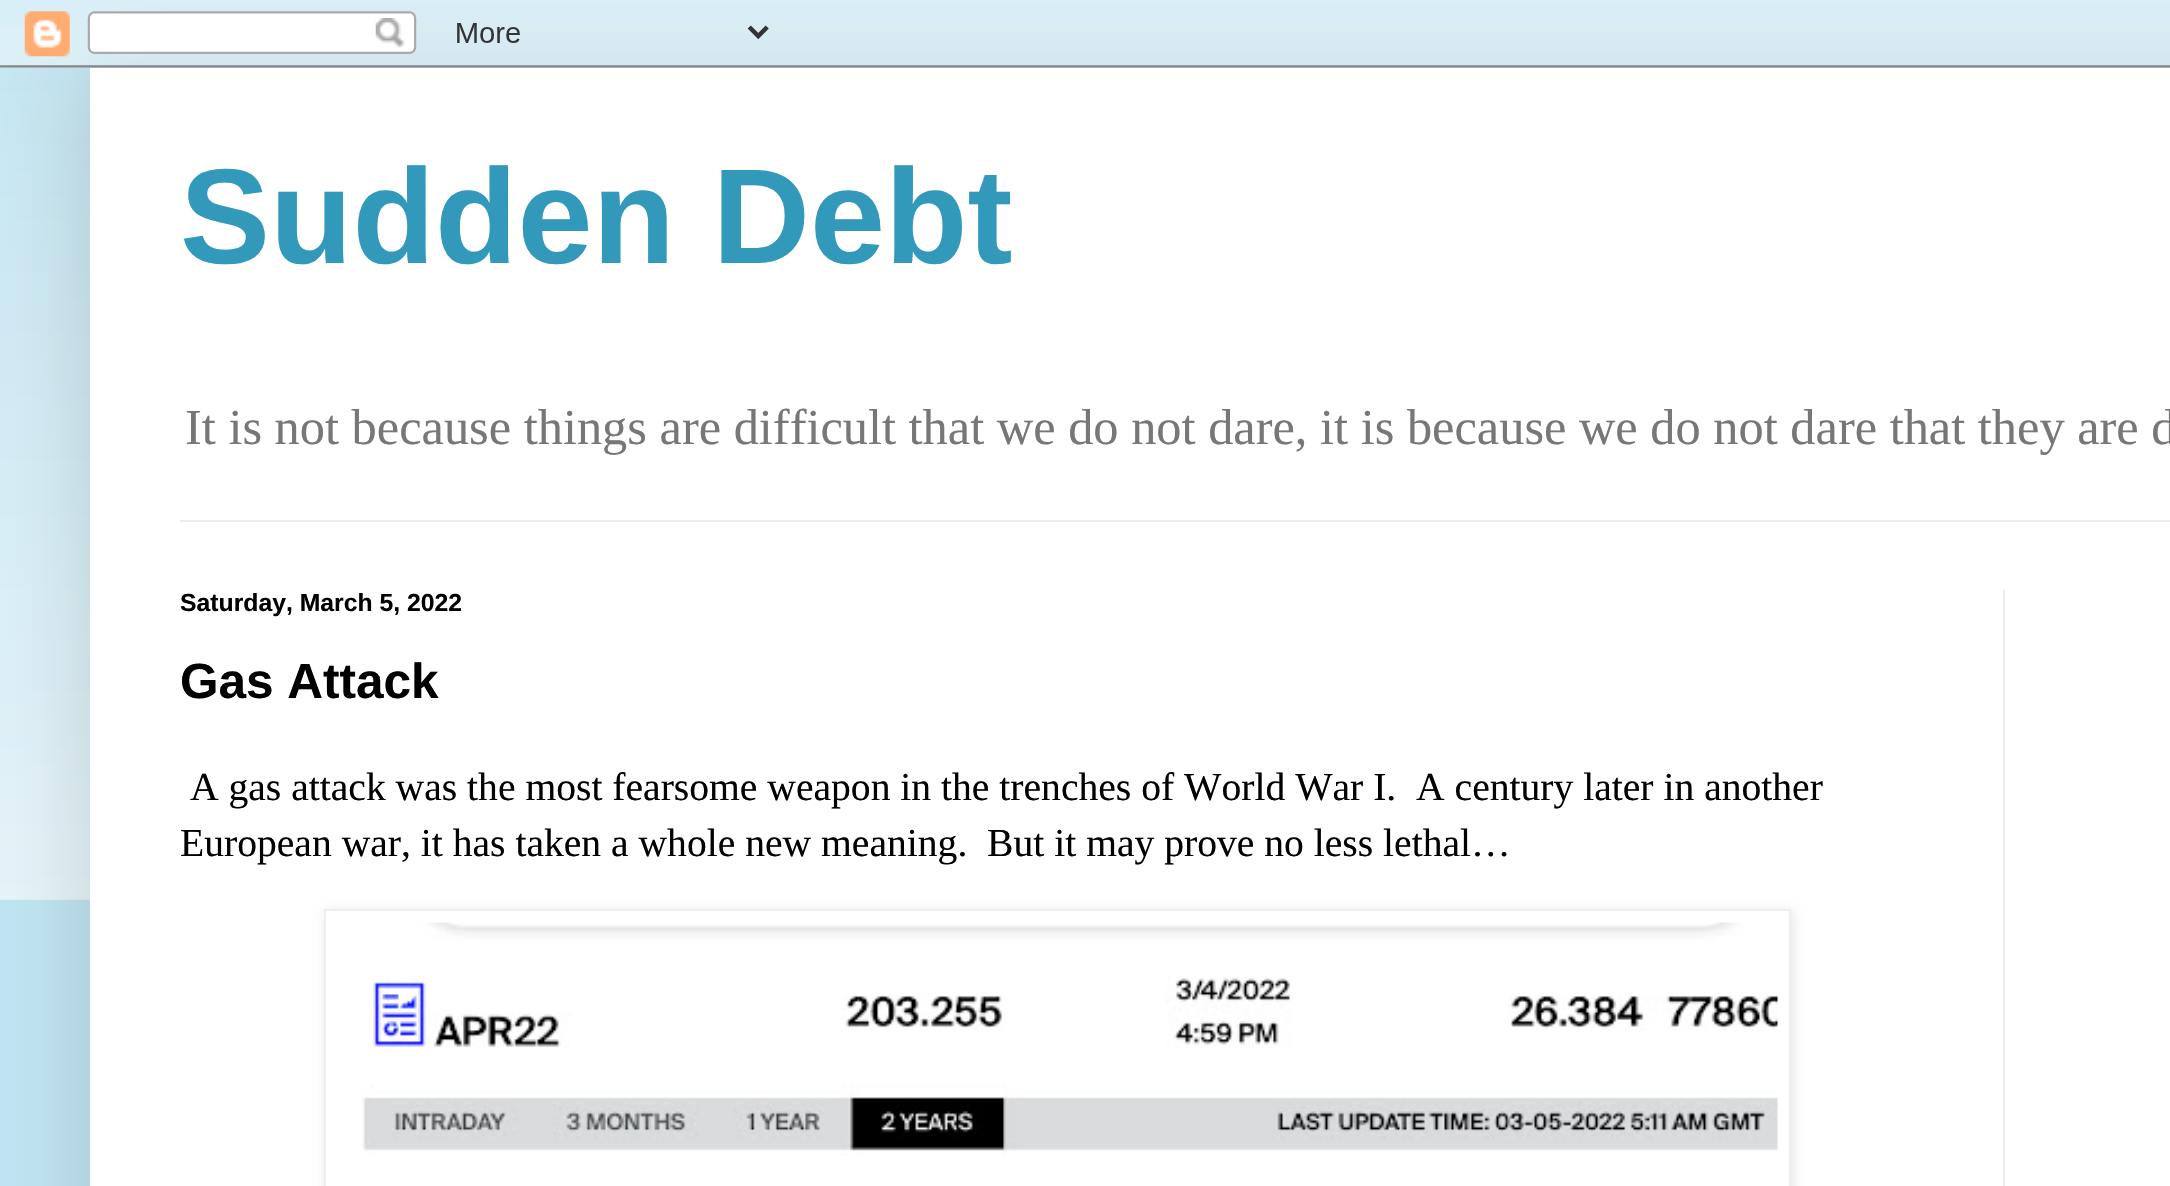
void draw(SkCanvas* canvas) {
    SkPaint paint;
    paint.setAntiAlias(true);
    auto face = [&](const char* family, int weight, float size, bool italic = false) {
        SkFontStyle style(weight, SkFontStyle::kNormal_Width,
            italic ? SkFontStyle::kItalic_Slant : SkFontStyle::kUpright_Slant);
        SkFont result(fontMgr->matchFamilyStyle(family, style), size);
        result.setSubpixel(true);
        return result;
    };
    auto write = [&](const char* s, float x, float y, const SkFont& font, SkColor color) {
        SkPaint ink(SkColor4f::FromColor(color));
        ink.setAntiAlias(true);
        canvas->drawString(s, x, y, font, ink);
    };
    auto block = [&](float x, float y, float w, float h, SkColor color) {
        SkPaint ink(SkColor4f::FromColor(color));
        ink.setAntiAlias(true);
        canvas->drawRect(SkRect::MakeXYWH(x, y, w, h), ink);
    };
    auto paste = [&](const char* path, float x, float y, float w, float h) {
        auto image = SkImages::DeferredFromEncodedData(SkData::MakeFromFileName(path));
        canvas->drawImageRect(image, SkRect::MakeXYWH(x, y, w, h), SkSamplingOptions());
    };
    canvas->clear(SkColorSetRGB(193, 229, 242));
    paste("pic2.png", 0, 23, 2170, 877);
    paint.setColor(SkColorSetARGB(38, 0, 0, 0));
    paint.setMaskFilter(SkMaskFilter::MakeBlur(kNormal_SkBlurStyle, 45));
    canvas->drawRect(SkRect::MakeXYWH(90, 68, 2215, 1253), paint);
    paint.setMaskFilter(nullptr);
    paste("pic1.png", 0, 0, 2170, 68);
    block(90, 68, 2080, 1118, SK_ColorWHITE);
    auto kFont1 = face("Liberation Sans", 700, 135);
    write("Sudden Debt", 180, 263, kFont1, SkColorSetRGB(51, 153, 187));
    auto kFont2 = face("Liberation Serif", 400, 50.4f);
    write("It is not because things are difficult that we do not dare, it is because we do not dare that they are d", 185, 444, kFont2, SkColorSetRGB(119, 119, 119));
    block(180, 520, 1990, 2, SkColorSetRGB(238, 238, 238));
    auto kFont3 = face("Liberation Sans", 700, 24.75f);
    write("Saturday, March 5, 2022", 180, 611, kFont3, SK_ColorBLACK);
    auto kFont4 = face("Liberation Sans", 700, 49.5f);
    write("Gas Attack", 180, 698, kFont4, SK_ColorBLACK);
    auto kFont5 = face("Liberation Serif", 400, 39.6f);
    write("A gas attack was the most fearsome weapon in the trenches of World War I.  A century later in another", 190, 800, kFont5, SK_ColorBLACK);
    write("European war, it has taken a whole new meaning.  But it may prove no less lethal…", 180, 856, kFont5, SK_ColorBLACK);
    canvas->save();
    canvas->clipPath(SkPathBuilder(SkPathFillType::kEvenOdd).moveTo(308, 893).lineTo(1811, 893).lineTo(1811, 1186).lineTo(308, 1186).close().moveTo(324, 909).lineTo(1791, 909).lineTo(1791, 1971).lineTo(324, 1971).close().detach(), true);
    paint.setColor(SkColorSetARGB(26, 0, 0, 0));
    paint.setMaskFilter(SkMaskFilter::MakeBlur(kNormal_SkBlurStyle, 5.5f));
    canvas->drawRect(SkRect::MakeXYWH(326, 911, 1467, 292), paint);
    paint.setMaskFilter(nullptr);
    canvas->restore();
    paint.setStyle(SkPaint::kStroke_Style);
    paint.setStrokeWidth(2);
    paint.setColor(SkColorSetRGB(238, 238, 238));
    canvas->drawRect(SkRect::MakeXYWH(325, 910, 1465, 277), paint);
    paste("pic3.png", 362, 922, 1416, 234);
    block(2003, 590, 2, 596, SkColorSetRGB(238, 238, 238));
}
